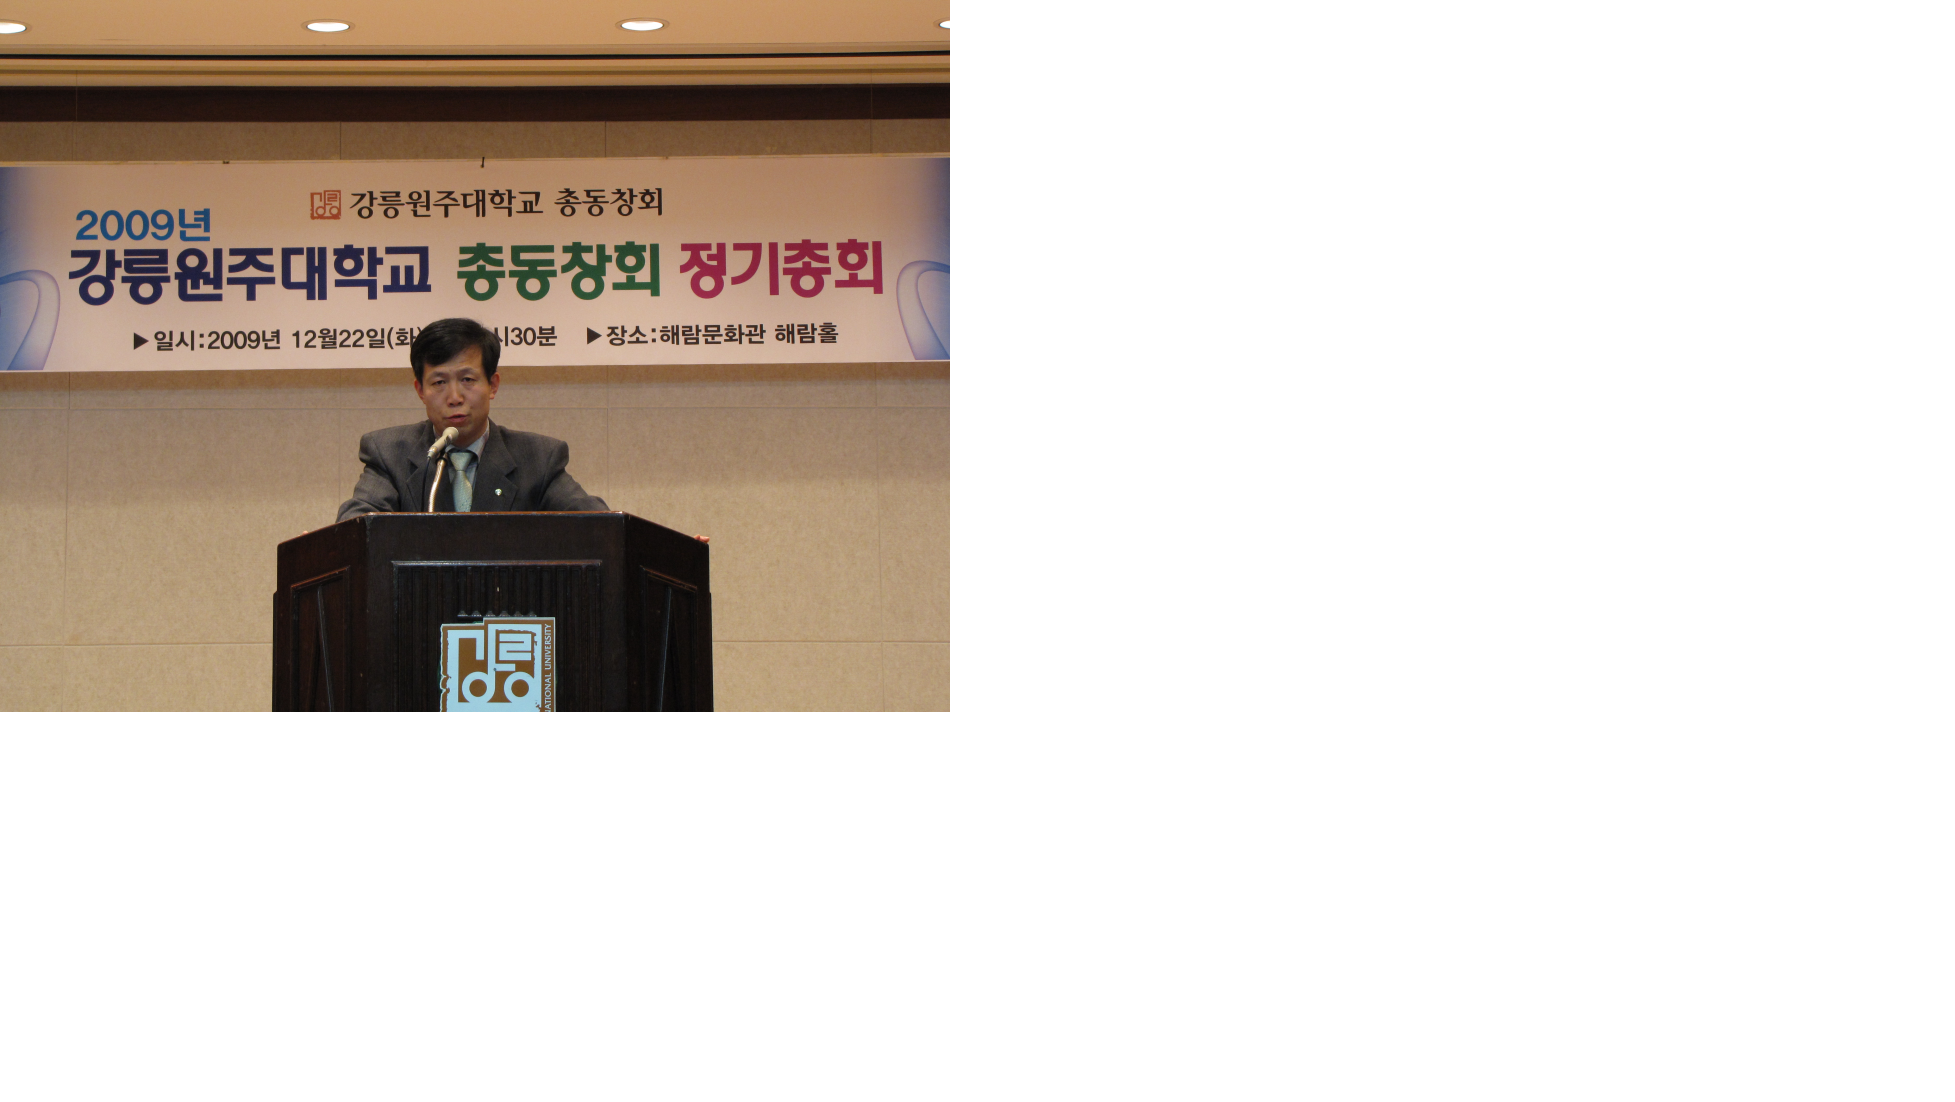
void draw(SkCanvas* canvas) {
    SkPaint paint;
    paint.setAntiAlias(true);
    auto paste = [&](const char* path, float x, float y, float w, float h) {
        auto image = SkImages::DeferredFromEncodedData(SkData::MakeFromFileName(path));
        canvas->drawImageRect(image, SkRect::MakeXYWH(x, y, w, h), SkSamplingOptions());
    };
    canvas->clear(SK_ColorWHITE);
    paste("pic1.png", 0, 0, 950, 712);
}
